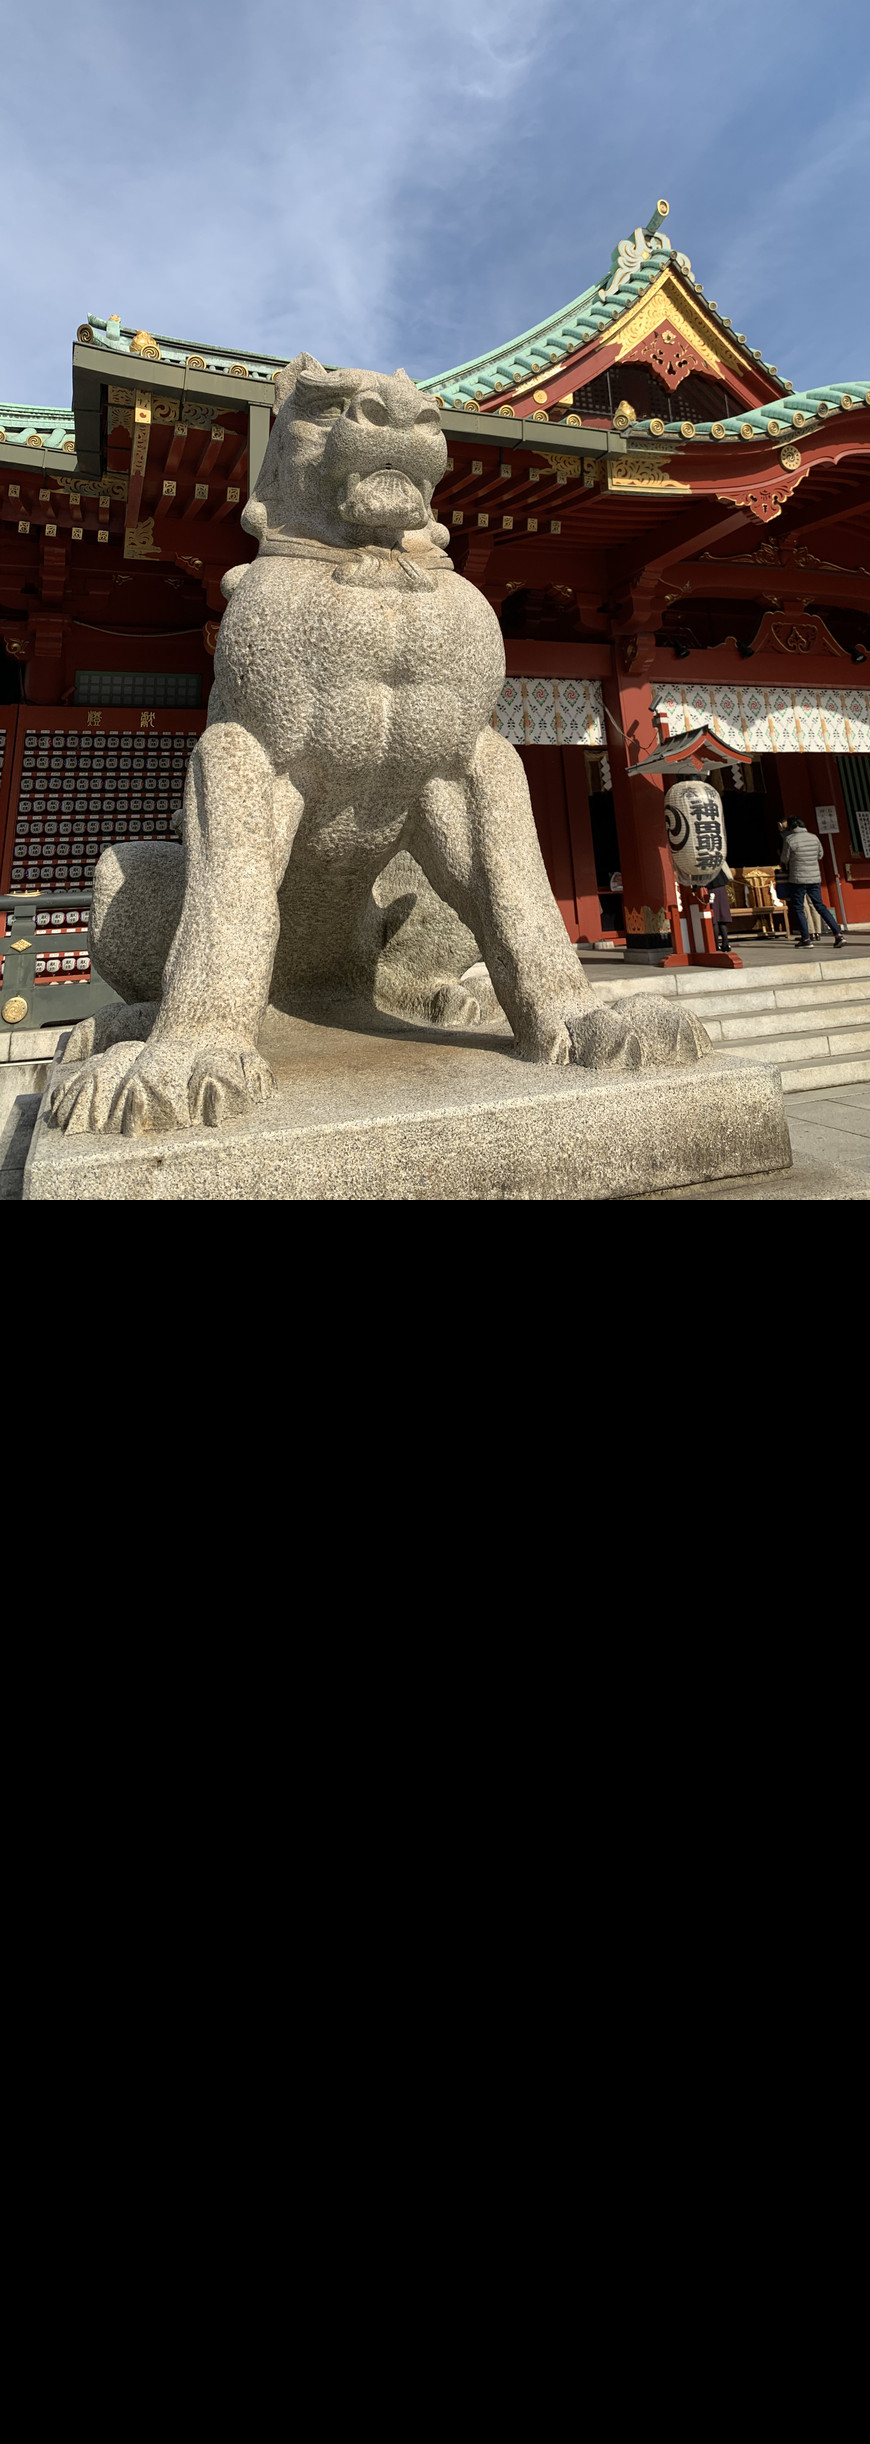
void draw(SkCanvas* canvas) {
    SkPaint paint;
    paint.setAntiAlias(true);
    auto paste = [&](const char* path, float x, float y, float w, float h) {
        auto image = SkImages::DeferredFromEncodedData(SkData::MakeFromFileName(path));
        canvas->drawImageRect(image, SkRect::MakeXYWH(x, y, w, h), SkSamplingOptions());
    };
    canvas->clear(SK_ColorBLACK);
    paste("pic1.png", 0, 0, 870, 1200);
}
